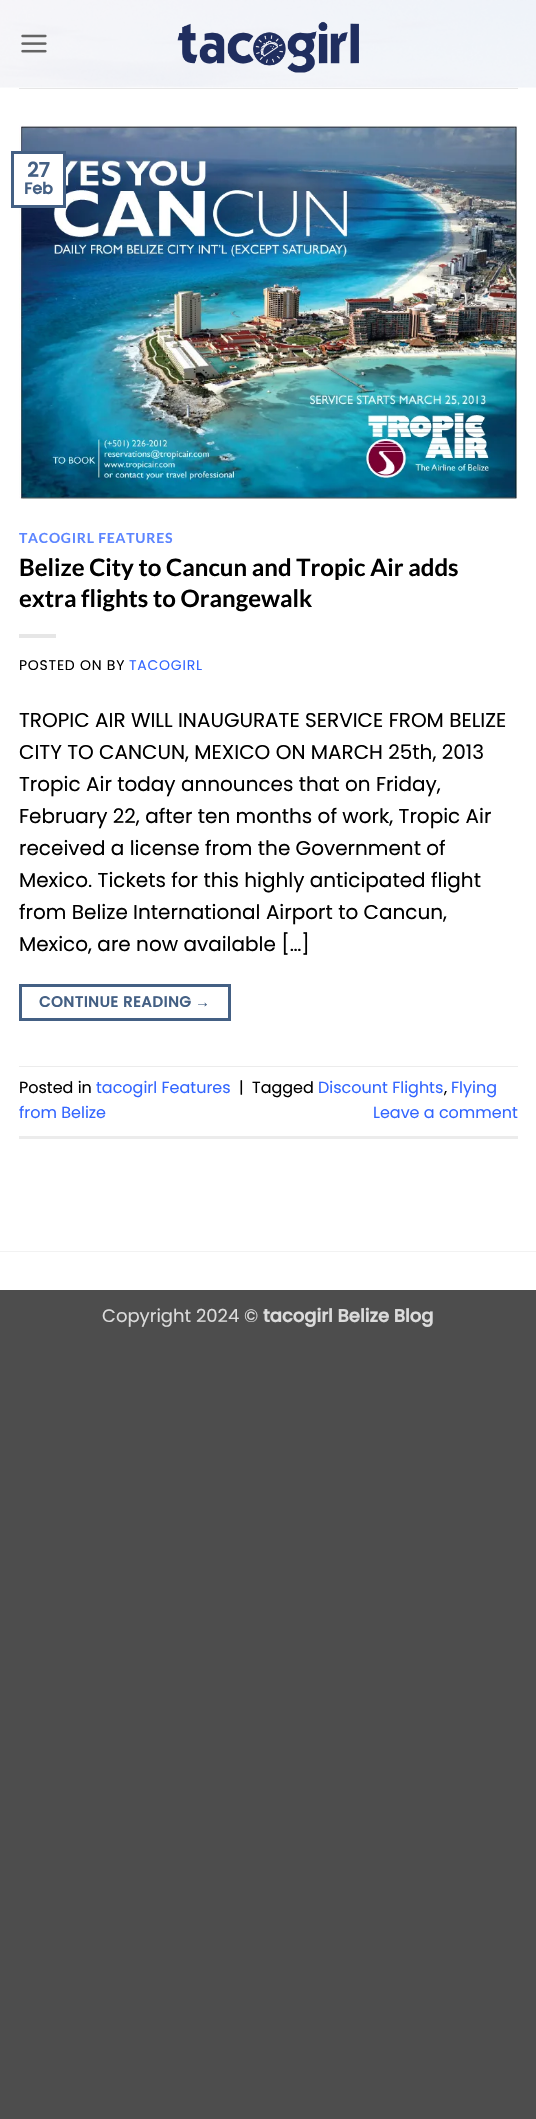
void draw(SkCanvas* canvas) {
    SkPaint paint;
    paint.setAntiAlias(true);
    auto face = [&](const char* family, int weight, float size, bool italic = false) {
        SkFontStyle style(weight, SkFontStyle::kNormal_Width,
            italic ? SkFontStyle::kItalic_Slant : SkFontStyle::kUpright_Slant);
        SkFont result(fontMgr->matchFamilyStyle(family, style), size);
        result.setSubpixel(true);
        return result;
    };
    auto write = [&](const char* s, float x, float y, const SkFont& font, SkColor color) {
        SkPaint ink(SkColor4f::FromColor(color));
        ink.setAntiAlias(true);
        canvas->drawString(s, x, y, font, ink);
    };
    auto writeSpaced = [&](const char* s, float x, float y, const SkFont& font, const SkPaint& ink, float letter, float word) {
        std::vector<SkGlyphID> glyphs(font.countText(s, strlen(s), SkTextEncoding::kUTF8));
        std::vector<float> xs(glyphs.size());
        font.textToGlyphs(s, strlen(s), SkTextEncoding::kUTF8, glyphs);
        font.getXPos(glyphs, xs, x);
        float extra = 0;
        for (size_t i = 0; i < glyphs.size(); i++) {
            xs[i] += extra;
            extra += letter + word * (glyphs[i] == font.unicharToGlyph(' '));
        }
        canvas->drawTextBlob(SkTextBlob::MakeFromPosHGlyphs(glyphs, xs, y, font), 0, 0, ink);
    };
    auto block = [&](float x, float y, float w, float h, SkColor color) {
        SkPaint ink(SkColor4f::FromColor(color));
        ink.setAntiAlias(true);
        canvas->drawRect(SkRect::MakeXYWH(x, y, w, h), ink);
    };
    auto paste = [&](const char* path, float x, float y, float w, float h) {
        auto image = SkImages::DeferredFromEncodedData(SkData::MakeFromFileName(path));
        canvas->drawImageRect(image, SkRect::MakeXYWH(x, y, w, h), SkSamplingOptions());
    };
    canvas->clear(SkColorSetRGB(77, 77, 77));
    block(0, 87, 536, 1203, SK_ColorWHITE);
    paste("pic1.png", 0, 0, 536, 88);
    paste("pic2.png", 21, 34, 26, 19);
    paste("pic3.png", 177, 21, 182, 52);
    block(19, 88, 499, 1, SkColorSetRGB(230, 230, 230));
    paste("pic4.png", 19, 125, 499, 374);
    block(19, 154, 44, 51, SK_ColorWHITE);
    paint.setStyle(SkPaint::kStroke_Style);
    paint.setStrokeWidth(3);
    paint.setColor(SkColorSetRGB(68, 96, 132));
    canvas->drawRect(SkRect::MakeXYWH(12.5f, 152.5f, 52, 54), paint);
    auto kFont1 = face("Poppins", 700, 20);
    write("27", 27, 177, kFont1, SkColorSetRGB(68, 96, 132));
    auto kFont2 = face("Poppins", 700, 16);
    write("Feb", 24, 194, kFont2, SkColorSetRGB(68, 96, 132));
    auto kFont3 = face("Lato", 700, 14);
    paint.setStyle(SkPaint::kFill_Style);
    paint.setColor(SkColorSetRGB(92, 133, 255));
    writeSpaced("TACOGIRL FEATURES", 19, 543, kFont3, paint, 0.75f, 0);
    auto kFont4 = face("Lato", 700, 24);
    write("Belize City to Cancun and Tropic Air adds", 19, 576, kFont4, SK_ColorBLACK);
    write("extra flights to Orangewalk", 19, 607, kFont4, SK_ColorBLACK);
    block(19, 634, 37, 4, SkColorSetRGB(230, 230, 230));
    auto kFont5 = face("Poppins", 400, 14);
    paint.setColor(SK_ColorBLACK);
    writeSpaced("POSTED ON BY", 19, 670, kFont5, paint, 0.75f, 0);
    paint.setColor(SkColorSetRGB(51, 102, 255));
    writeSpaced("TACOGIRL", 129, 670, kFont5, paint, 0.75f, 0);
    auto kFont6 = face("Poppins", 400, 20);
    write("TROPIC AIR WILL INAUGURATE SERVICE FROM BELIZE", 19, 727, kFont6, SK_ColorBLACK);
    write("CITY TO CANCUN, MEXICO ON MARCH 25th, 2013", 19, 759, kFont6, SK_ColorBLACK);
    write("Tropic Air today announces that on Friday,", 19, 791, kFont6, SK_ColorBLACK);
    write("February 22, after ten months of work, Tropic Air", 19, 823, kFont6, SK_ColorBLACK);
    write("received a license from the Government of", 19, 855, kFont6, SK_ColorBLACK);
    write("Mexico. Tickets for this highly anticipated flight", 19, 887, kFont6, SK_ColorBLACK);
    write("from Belize International Airport to Cancun,", 19, 919, kFont6, SK_ColorBLACK);
    write("Mexico, are now available […]", 19, 951, kFont6, SK_ColorBLACK);
    paint.setStyle(SkPaint::kStroke_Style);
    paint.setColor(SkColorSetRGB(68, 96, 132));
    canvas->drawRect(SkRect::MakeXYWH(20.5f, 985.5f, 209, 34), paint);
    auto kFont7 = face("Poppins", 700, 15);
    paint.setStyle(SkPaint::kFill_Style);
    writeSpaced("CONTINUE READING", 39, 1007, kFont7, paint, 0.5f, 0);
    auto kFont8 = face("Liberation Sans", 700, 15);
    writeSpaced("→", 195, 1007, kFont8, paint, 0.5f, 0);
    block(19, 1066, 499, 1, SkColorSetRGB(236, 236, 236));
    block(19, 1136, 499, 3, SkColorSetRGB(236, 236, 236));
    auto kFont9 = face("Poppins", 400, 16);
    write("Posted in", 19, 1093, kFont9, SK_ColorBLACK);
    write("tacogirl Features", 96, 1093, kFont9, SkColorSetRGB(51, 102, 255));
    write("|", 239, 1093, kFont9, SK_ColorBLACK);
    write("Tagged", 252, 1093, kFont9, SK_ColorBLACK);
    write("Discount Flights", 318, 1093, kFont9, SkColorSetRGB(51, 102, 255));
    write(",", 444, 1093, kFont9, SK_ColorBLACK);
    write("Flying", 451, 1093, kFont9, SkColorSetRGB(51, 102, 255));
    write("from Belize", 19, 1118, kFont9, SkColorSetRGB(51, 102, 255));
    write("Leave a comment", 373, 1118, kFont9, SkColorSetRGB(51, 102, 255));
    block(0, 1251, 536, 1, SkColorSetRGB(242, 242, 242));
    auto kFont10 = face("Poppins", 400, 18);
    write("Copyright 2024 ©", 102, 1322, kFont10, SkColorSetRGB(219, 219, 219));
    auto kFont11 = face("Poppins", 700, 18);
    write("tacogirl Belize Blog", 263, 1322, kFont11, SkColorSetRGB(219, 219, 219));
}
